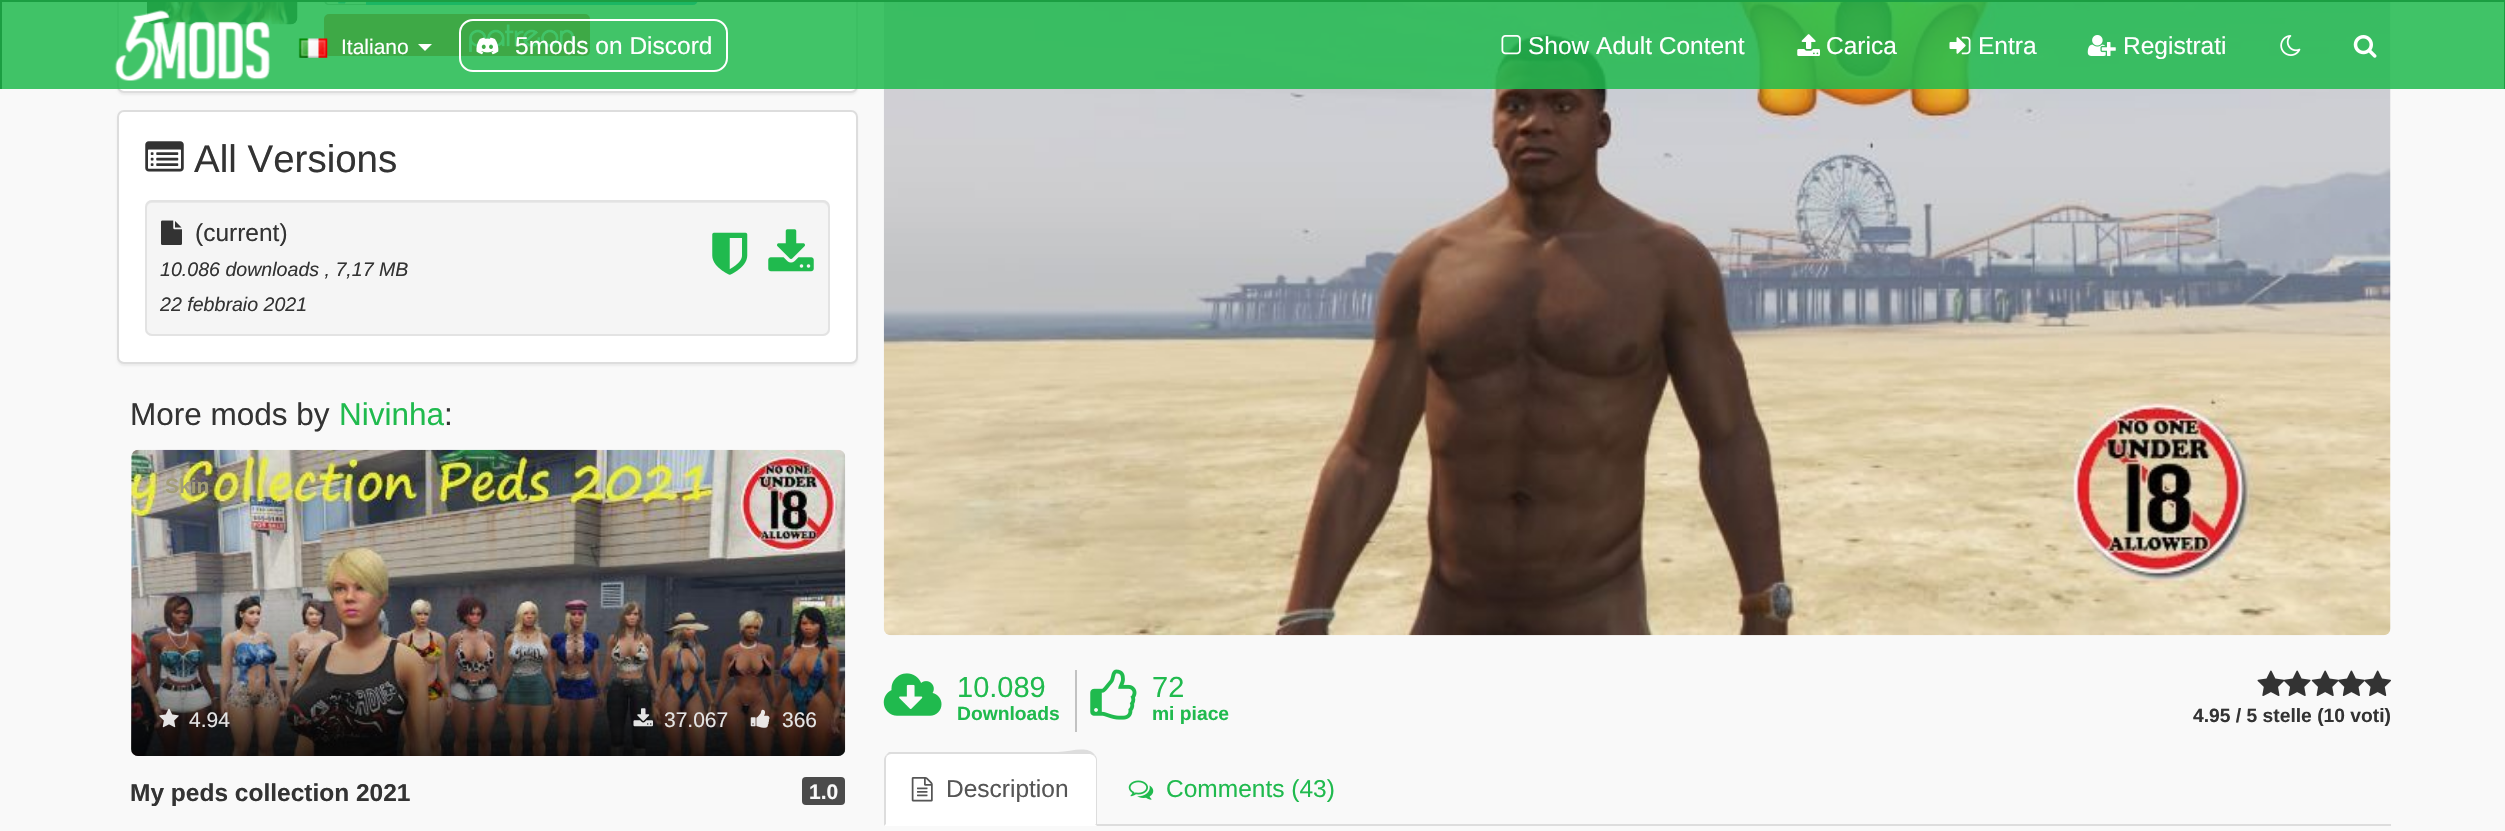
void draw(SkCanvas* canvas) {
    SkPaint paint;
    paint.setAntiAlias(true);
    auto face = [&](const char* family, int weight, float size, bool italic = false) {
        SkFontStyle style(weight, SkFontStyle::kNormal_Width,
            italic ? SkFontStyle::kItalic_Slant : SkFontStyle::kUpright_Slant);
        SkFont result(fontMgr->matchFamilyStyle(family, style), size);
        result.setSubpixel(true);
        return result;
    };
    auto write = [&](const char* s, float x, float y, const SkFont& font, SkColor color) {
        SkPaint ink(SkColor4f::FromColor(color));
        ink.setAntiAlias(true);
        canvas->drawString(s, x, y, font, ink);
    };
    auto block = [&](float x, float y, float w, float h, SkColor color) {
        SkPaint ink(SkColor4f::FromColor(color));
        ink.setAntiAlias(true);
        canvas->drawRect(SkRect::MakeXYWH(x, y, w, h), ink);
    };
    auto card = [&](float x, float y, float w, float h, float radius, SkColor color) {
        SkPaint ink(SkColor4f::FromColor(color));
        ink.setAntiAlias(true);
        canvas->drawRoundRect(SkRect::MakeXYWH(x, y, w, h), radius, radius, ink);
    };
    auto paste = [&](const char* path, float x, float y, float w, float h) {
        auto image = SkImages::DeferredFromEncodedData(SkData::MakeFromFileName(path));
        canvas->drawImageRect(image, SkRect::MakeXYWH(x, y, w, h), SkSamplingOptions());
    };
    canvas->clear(SkColorSetRGB(249, 249, 249));
    paint.setColor(SkColorSetARGB(13, 0, 0, 0));
    paint.setMaskFilter(SkMaskFilter::MakeBlur(kNormal_SkBlurStyle, 1));
    canvas->drawRoundRect(SkRect::MakeXYWH(117, -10, 741, 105), 7, 7, paint);
    paint.setMaskFilter(nullptr);
    paint.setColor(SK_ColorWHITE);
    canvas->drawRoundRect(SkRect::MakeXYWH(118, -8, 739, 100), 6, 6, paint);
    paint.setStyle(SkPaint::kStroke_Style);
    paint.setStrokeWidth(2);
    paint.setColor(SkColorSetRGB(221, 221, 221));
    canvas->drawRoundRect(SkRect::MakeXYWH(118, -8, 739, 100), 6, 6, paint);
    paste("pic10.png", 147, 2, 151, 23);
    paint.setStyle(SkPaint::kFill_Style);
    paint.setColor(SkColorSetRGB(170, 170, 170));
    canvas->drawPath(SkPathBuilder(SkPathFillType::kEvenOdd).moveTo(329, -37).lineTo(366, -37).lineTo(366, 5).lineTo(329, 5).cubicTo(326, 5, 324, 3, 324, 0).lineTo(324, -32).cubicTo(324, -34, 326, -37, 329, -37).close().moveTo(329, -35).lineTo(366, -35).lineTo(366, 4).lineTo(329, 4).cubicTo(327, 4, 326, 2, 326, 0).lineTo(326, -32).cubicTo(326, -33, 327, -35, 329, -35).close().detach(), paint);
    paste("pic11.png", 338, 2, 8, 2);
    paint.setColor(SkColorSetRGB(0, 156, 222));
    canvas->drawPath(SkPathBuilder().moveTo(367, -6).lineTo(693, -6).cubicTo(695, -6, 697, -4, 697, -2).lineTo(697, 0).cubicTo(697, 2, 695, 4, 693, 4).lineTo(367, 4).close().detach(), paint);
    paint.setStyle(SkPaint::kStroke_Style);
    canvas->drawPath(SkPathBuilder().moveTo(367, -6).lineTo(693, -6).cubicTo(695, -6, 697, -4, 697, -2).lineTo(697, 0).cubicTo(697, 2, 695, 4, 693, 4).lineTo(367, 4).close().detach(), paint);
    paint.setStyle(SkPaint::kFill_Style);
    paint.setColor(SkColorSetRGB(230, 70, 26));
    canvas->drawRoundRect(SkRect::MakeXYWH(325, 15, 264, 40), 4, 4, paint);
    paint.setStyle(SkPaint::kStroke_Style);
    canvas->drawRoundRect(SkRect::MakeXYWH(325, 15, 264, 40), 4, 4, paint);
    paste("pic12.png", 469, 24, 105, 28);
    paste("pic21.png", 883, 2, 1508, 634);
    block(2, 2, 2502, 87, SkColorSetARGB(217, 32, 186, 78));
    block(0, 0, 2505, 2, SkColorSetRGB(27, 158, 66));
    block(2504, 0, 1, 89, SkColorSetRGB(27, 158, 66));
    block(0, 0, 2, 89, SkColorSetRGB(27, 158, 66));
    paste("pic1.png", 114, 10, 156, 71);
    paste("pic2.png", 298, 38, 30, 20);
    auto kFont1 = face("Liberation Sans", 400, 21);
    write("Italiano", 341, 54, kFont1, SK_ColorWHITE);
    paint.setStyle(SkPaint::kFill_Style);
    paint.setColor(SK_ColorWHITE);
    canvas->drawPath(SkPathBuilder().moveTo(418, 44).lineTo(432, 44).lineTo(425, 51).close().detach(), paint);
    paint.setStyle(SkPaint::kStroke_Style);
    canvas->drawRoundRect(SkRect::MakeXYWH(460, 20, 267, 51), 13, 13, paint);
    paste("pic3.png", 476, 37, 23, 18);
    auto kFont2 = face("Liberation Sans", 400, 24.5f);
    write("5mods on Discord", 515, 54, kFont2, SK_ColorWHITE);
    paste("pic4.png", 1501, 35, 20, 20);
    write("Show Adult Content", 1528, 54, kFont2, SK_ColorWHITE);
    paste("pic5.png", 1797, 34, 23, 22);
    write("Carica", 1826, 54, kFont2, SK_ColorWHITE);
    paste("pic6.png", 1949, 36, 22, 19);
    write("Entra", 1978, 54, kFont2, SK_ColorWHITE);
    paste("pic7.png", 2087, 35, 29, 21);
    write("Registrati", 2123, 54, kFont2, SK_ColorWHITE);
    paste("pic8.png", 2280, 35, 21, 21);
    paste("pic9.png", 2353, 35, 24, 23);
    paint.setStyle(SkPaint::kFill_Style);
    paint.setColor(SkColorSetARGB(13, 0, 0, 0));
    paint.setMaskFilter(SkMaskFilter::MakeBlur(kNormal_SkBlurStyle, 1));
    canvas->drawRoundRect(SkRect::MakeXYWH(117, 112, 741, 254), 7, 7, paint);
    paint.setMaskFilter(nullptr);
    paint.setColor(SK_ColorWHITE);
    canvas->drawRoundRect(SkRect::MakeXYWH(118, 111, 739, 252), 6, 6, paint);
    paint.setStyle(SkPaint::kStroke_Style);
    paint.setColor(SkColorSetRGB(221, 221, 221));
    canvas->drawRoundRect(SkRect::MakeXYWH(118, 111, 739, 252), 6, 6, paint);
    paste("pic13.png", 145, 141, 39, 31);
    auto kFont3 = face("Liberation Sans", 400, 38.5f);
    write("All Versions", 194, 172, kFont3, SkColorSetRGB(51, 51, 51));
    card(145, 200, 685, 136, 7, SkColorSetRGB(245, 245, 245));
    paint.setStyle(SkPaint::kFill_Style);
    paint.setColor(SkColorSetRGB(233, 233, 233));
    canvas->drawPath(SkPathBuilder().moveTo(152, 203).lineTo(822, 203).cubicTo(825, 203, 828, 205, 828, 208).lineTo(828, 206).cubicTo(828, 203, 826, 201, 823, 201).lineTo(152, 201).cubicTo(149, 201, 147, 203, 147, 206).lineTo(147, 208).cubicTo(147, 205, 149, 203, 152, 203).close().detach(), paint);
    paint.setStyle(SkPaint::kStroke_Style);
    paint.setColor(SkColorSetRGB(227, 227, 227));
    canvas->drawRoundRect(SkRect::MakeXYWH(146, 201, 683, 134), 6, 6, paint);
    paste("pic14.png", 161, 220, 21, 25);
    write("(current)", 195, 241, kFont2, SkColorSetRGB(51, 51, 51));
    auto kFont4 = face("Liberation Sans", 400, 19.6f, true);
    write("10.086 downloads , 7,17 MB", 160, 276, kFont4, SkColorSetRGB(51, 51, 51));
    write("22 febbraio 2021", 160, 311, kFont4, SkColorSetRGB(51, 51, 51));
    paste("pic15.png", 712, 232, 36, 43);
    paste("pic16.png", 768, 229, 46, 43);
    auto kFont5 = face("Liberation Sans", 400, 31.5f);
    write("More mods by", 130, 425, kFont5, SkColorSetRGB(51, 51, 51));
    write("Nivinha", 339, 425, kFont5, SkColorSetRGB(32, 186, 78));
    write(":", 444, 425, kFont5, SkColorSetRGB(51, 51, 51));
    paste("pic17.png", 131, 449, 715, 307);
    paint.setStyle(SkPaint::kFill_Style);
    {
        const SkColor colors[] = {SkColorSetARGB(0, 0, 0, 0), SkColorSetARGB(64, 0, 0, 0), SkColorSetARGB(191, 0, 0, 0)};
        const float stops[] = {0.5f, 0.75f, 1};
        const SkPoint ends[] = {{488, 450}, {488, 756}};
        paint.setShader(SkGradientShader::MakeLinear(ends, colors, stops, 3, SkTileMode::kClamp));
        paint.setAlpha(255);
    }
    canvas->drawRoundRect(SkRect::MakeXYWH(131, 450, 714, 306), 7, 7, paint);
    auto kFont6 = face("Liberation Sans", 700, 21);
    write("Skin", 165, 493, kFont6, SkColorSetRGB(162, 157, 119));
    paste("pic18.png", 159, 708, 20, 20);
    write("4.94", 189, 727, kFont1, SkColorSetRGB(229, 228, 228));
    paste("pic19.png", 633, 708, 20, 19);
    write("37.067", 664, 727, kFont1, SkColorSetRGB(229, 228, 228));
    paste("pic20.png", 750, 709, 20, 19);
    write("366", 782, 727, kFont1, SkColorSetRGB(229, 228, 228));
    auto kFont7 = face("Liberation Sans", 700, 24.5f);
    write("My peds collection 2021", 130, 801, kFont7, SkColorSetRGB(51, 51, 51));
    card(802, 777, 43, 28, 4, SkColorSetRGB(75, 75, 75));
    write("1.0", 809, 799, kFont6, SkColorSetRGB(249, 249, 249));
    paste("pic22.png", 883, 673, 59, 43);
    block(1075, 670, 2, 62, SkColorSetRGB(194, 194, 194));
    auto kFont8 = face("Liberation Sans", 400, 29);
    write("10.089", 957, 697, kFont8, SkColorSetRGB(32, 186, 78));
    auto kFont9 = face("Liberation Sans", 700, 19.25f);
    write("Downloads", 957, 720, kFont9, SkColorSetRGB(32, 186, 78));
    paste("pic23.png", 1090, 669, 47, 51);
    write("72", 1152, 697, kFont8, SkColorSetRGB(32, 186, 78));
    write("mi piace", 1152, 720, kFont9, SkColorSetRGB(32, 186, 78));
    paste("pic24.png", 2257, 670, 27, 26);
    paste("pic25.png", 2284, 670, 27, 26);
    paste("pic26.png", 2311, 670, 28, 26);
    paste("pic27.png", 2338, 670, 27, 26);
    paste("pic28.png", 2364, 670, 27, 26);
    write("4.95 / 5 stelle (10 voti)", 2193, 722, kFont9, SkColorSetRGB(51, 51, 51));
    block(1097, 824, 1294, 2, SkColorSetRGB(221, 221, 221));
    paint.setShader(nullptr);
    paint.setColor(SK_ColorWHITE);
    canvas->drawPath(SkPathBuilder().moveTo(891, 753).lineTo(1090, 753).cubicTo(1094, 753, 1097, 756, 1097, 760).lineTo(1097, 826).lineTo(884, 826).lineTo(884, 760).cubicTo(884, 756, 887, 753, 891, 753).close().detach(), paint);
    paint.setColor(SkColorSetRGB(221, 221, 221));
    canvas->drawPath(SkPathBuilder().moveTo(891, 754).cubicTo(889, 754, 888, 755, 887, 756).lineTo(886, 755).lineTo(889, 752).lineTo(1058, 752).cubicTo(1071, 752, 1087, 745, 1095, 755).lineTo(1094, 756).cubicTo(1093, 755, 1091, 754, 1090, 754).close().detach(), paint);
    canvas->drawPath(SkPathBuilder().moveTo(1095, 755).cubicTo(1096, 756, 1097, 758, 1097, 760).lineTo(1097, 826).lineTo(1095, 824).lineTo(1096, 824).lineTo(1096, 760).cubicTo(1096, 758, 1095, 757, 1094, 756).close().detach(), paint);
    canvas->drawPath(SkPathBuilder().moveTo(884, 826).lineTo(884, 760).cubicTo(884, 758, 885, 756, 886, 755).lineTo(887, 756).cubicTo(886, 757, 886, 759, 886, 760).lineTo(886, 824).close().detach(), paint);
    paste("pic29.png", 911, 777, 22, 25);
    write("Description", 946, 797, kFont2, SkColorSetRGB(85, 85, 85));
    paste("pic30.png", 1128, 780, 26, 20);
    write("Comments (43)", 1166, 797, kFont2, SkColorSetRGB(32, 186, 78));
}
